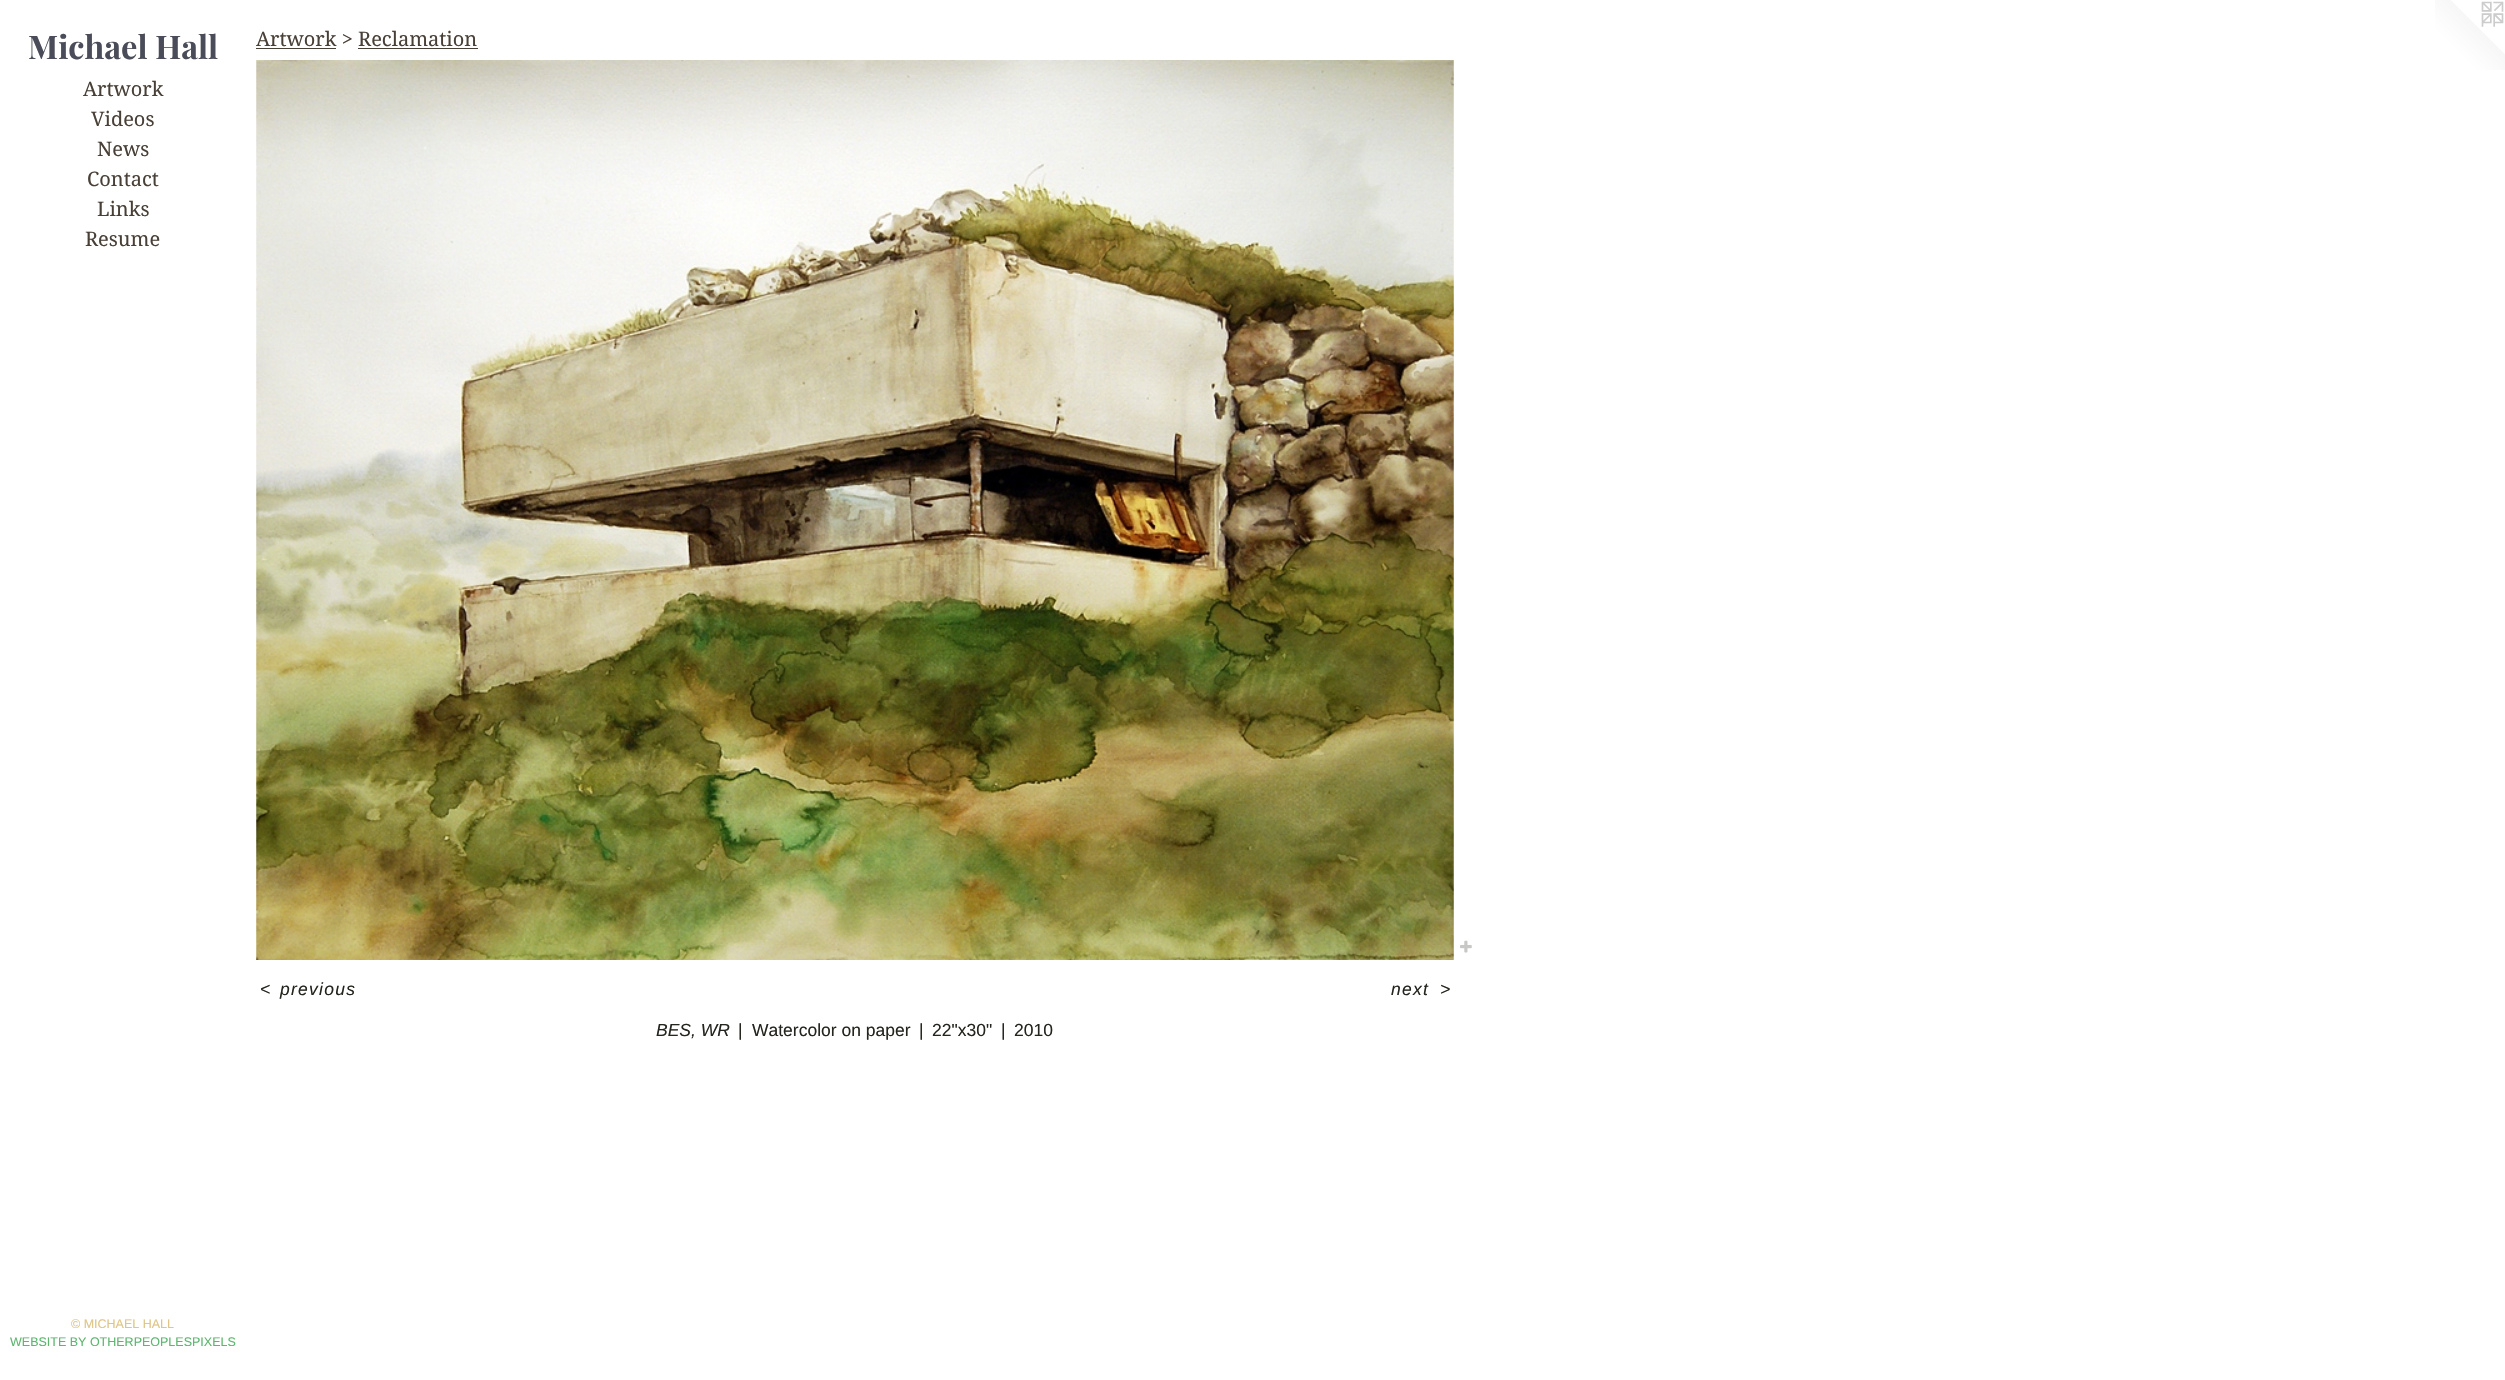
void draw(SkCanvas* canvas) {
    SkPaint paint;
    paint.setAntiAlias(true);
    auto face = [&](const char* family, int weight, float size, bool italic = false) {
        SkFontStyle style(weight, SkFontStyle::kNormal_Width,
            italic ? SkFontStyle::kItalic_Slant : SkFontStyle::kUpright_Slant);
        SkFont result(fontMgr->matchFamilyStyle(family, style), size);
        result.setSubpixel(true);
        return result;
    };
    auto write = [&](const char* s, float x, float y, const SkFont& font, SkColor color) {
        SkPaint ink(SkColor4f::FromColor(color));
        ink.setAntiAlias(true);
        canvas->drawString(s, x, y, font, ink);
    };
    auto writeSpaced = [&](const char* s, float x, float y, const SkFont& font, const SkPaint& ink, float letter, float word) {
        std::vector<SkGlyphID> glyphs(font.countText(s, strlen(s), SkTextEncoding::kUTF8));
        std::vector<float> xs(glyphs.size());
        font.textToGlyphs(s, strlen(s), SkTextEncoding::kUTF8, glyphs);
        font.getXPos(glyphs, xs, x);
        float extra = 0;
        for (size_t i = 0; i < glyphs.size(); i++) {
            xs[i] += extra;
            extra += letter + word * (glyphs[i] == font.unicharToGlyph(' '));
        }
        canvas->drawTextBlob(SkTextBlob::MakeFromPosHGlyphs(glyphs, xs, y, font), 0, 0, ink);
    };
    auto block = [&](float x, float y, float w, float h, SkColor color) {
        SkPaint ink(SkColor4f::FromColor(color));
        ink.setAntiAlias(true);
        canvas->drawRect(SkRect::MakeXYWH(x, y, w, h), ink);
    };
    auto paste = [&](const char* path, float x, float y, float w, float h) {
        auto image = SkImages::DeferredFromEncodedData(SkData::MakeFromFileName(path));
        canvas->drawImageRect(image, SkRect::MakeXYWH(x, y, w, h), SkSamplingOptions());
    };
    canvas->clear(SK_ColorWHITE);
    auto kFont1 = face("Playfair Display", 700, 32.5f);
    write("Michael Hall", 28, 59, kFont1, SkColorSetRGB(74, 77, 89));
    auto kFont2 = face("Droid Serif", 400, 20);
    write("Artwork", 83, 96, kFont2, SkColorSetRGB(72, 64, 55));
    write("Videos", 91, 126, kFont2, SkColorSetRGB(72, 64, 55));
    write("News", 97, 156, kFont2, SkColorSetRGB(72, 64, 55));
    write("Contact", 87, 186, kFont2, SkColorSetRGB(72, 64, 55));
    write("Links", 97, 216, kFont2, SkColorSetRGB(72, 64, 55));
    write("Resume", 85, 246, kFont2, SkColorSetRGB(72, 64, 55));
    auto kFont3 = face("Liberation Sans", 400, 12.5f);
    write("© MICHAEL HALL", 71, 1328, kFont3, SkColorSetRGB(223, 197, 134));
    write("WEBSITE BY OTHERPEOPLESPIXELS", 10, 1346, kFont3, SkColorSetRGB(93, 182, 111));
    write("Artwork > Reclamation", 256, 46, kFont2, SkColorSetRGB(72, 64, 55));
    block(256, 48, 80, 1, SkColorSetRGB(72, 64, 55));
    block(358, 48, 120, 1, SkColorSetRGB(72, 64, 55));
    paste("pic1.png", 256, 60, 1198, 900);
    paste("pic2.png", 1460, 940, 12, 13);
    auto kFont4 = face("Liberation Sans", 400, 17.5f, true);
    paint.setColor(SkColorSetRGB(36, 37, 30));
    writeSpaced("<", 260, 995, kFont4, paint, 1.25f, 0);
    writeSpaced("previous", 280, 995, kFont4, paint, 1.25f, 0);
    writeSpaced("next", 1391, 995, kFont4, paint, 1.25f, 0);
    writeSpaced(">", 1440, 995, kFont4, paint, 1.25f, 0);
    write("BES, WR", 656, 1036, kFont4, SkColorSetRGB(36, 37, 30));
    auto kFont5 = face("Liberation Sans", 400, 17.5f);
    write("|", 738, 1036, kFont5, SkColorSetRGB(36, 37, 30));
    write("Watercolor on paper", 752, 1036, kFont5, SkColorSetRGB(36, 37, 30));
    write("|", 919, 1036, kFont5, SkColorSetRGB(36, 37, 30));
    write("22\"x30\"", 932, 1036, kFont5, SkColorSetRGB(36, 37, 30));
    write("|", 1001, 1036, kFont5, SkColorSetRGB(36, 37, 30));
    write("2010", 1014, 1036, kFont5, SkColorSetRGB(36, 37, 30));
    paste("pic3.png", 2435, 0, 70, 70);
}
